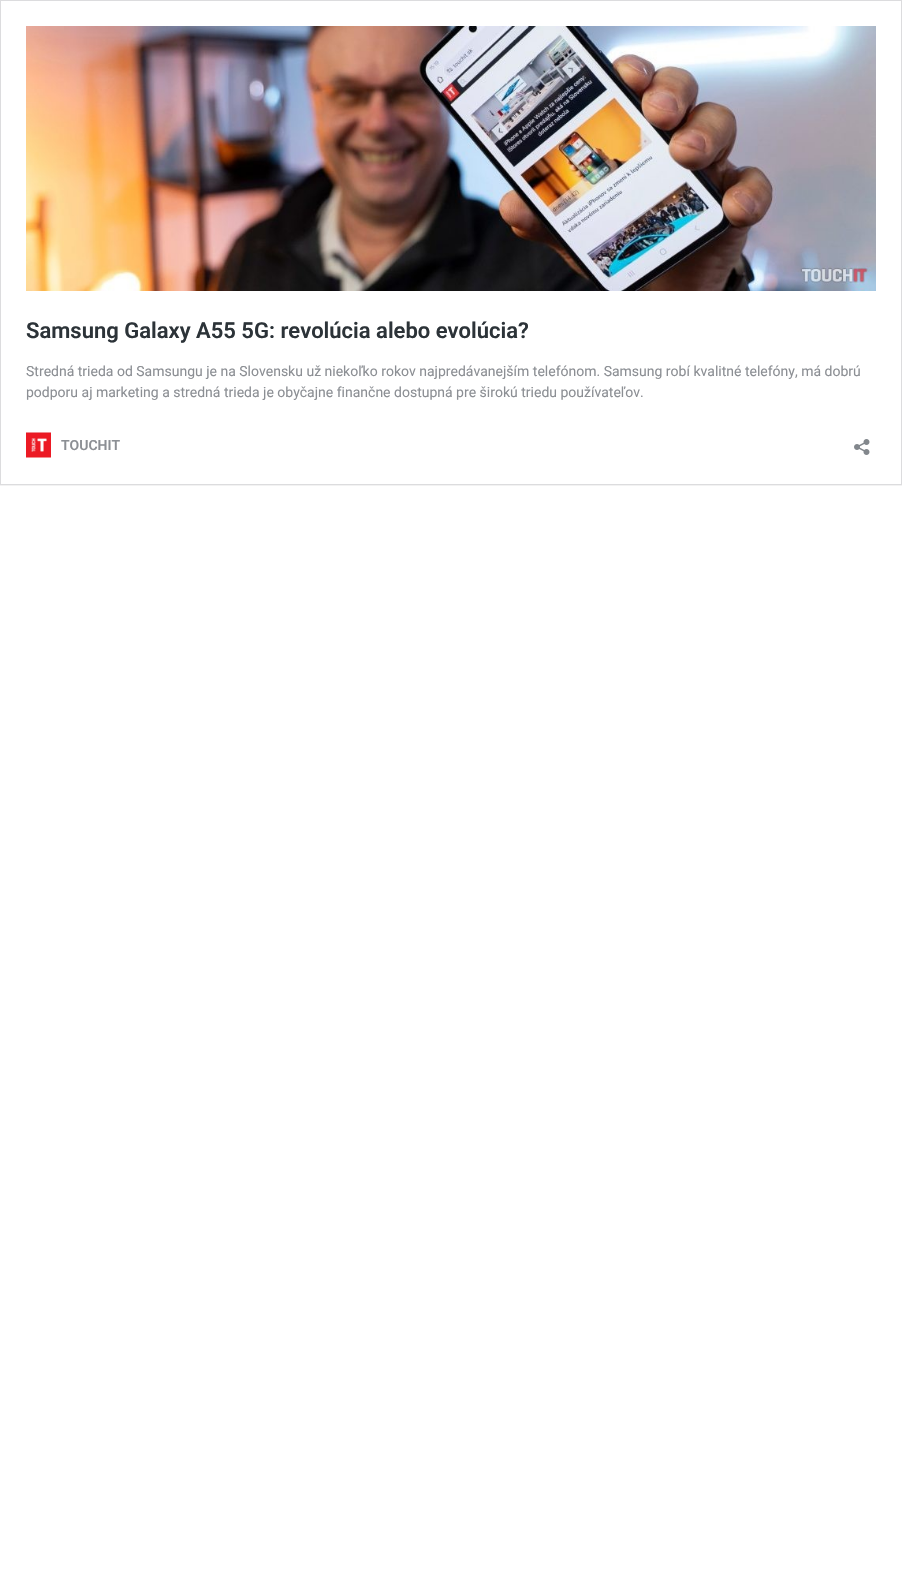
void draw(SkCanvas* canvas) {
    SkPaint paint;
    paint.setAntiAlias(true);
    auto face = [&](const char* family, int weight, float size, bool italic = false) {
        SkFontStyle style(weight, SkFontStyle::kNormal_Width,
            italic ? SkFontStyle::kItalic_Slant : SkFontStyle::kUpright_Slant);
        SkFont result(fontMgr->matchFamilyStyle(family, style), size);
        result.setSubpixel(true);
        return result;
    };
    auto write = [&](const char* s, float x, float y, const SkFont& font, SkColor color) {
        SkPaint ink(SkColor4f::FromColor(color));
        ink.setAntiAlias(true);
        canvas->drawString(s, x, y, font, ink);
    };
    auto paste = [&](const char* path, float x, float y, float w, float h) {
        auto image = SkImages::DeferredFromEncodedData(SkData::MakeFromFileName(path));
        canvas->drawImageRect(image, SkRect::MakeXYWH(x, y, w, h), SkSamplingOptions());
    };
    canvas->clear(SK_ColorWHITE);
    canvas->save();
    canvas->clipRect(SkRect::MakeXYWH(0, 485, 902, 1));
    paint.setColor(SkColorSetARGB(13, 0, 0, 0));
    paint.setMaskFilter(SkMaskFilter::MakeBlur(kNormal_SkBlurStyle, 0.5f));
    canvas->drawRect(SkRect::MakeXYWH(0, 1, 902, 485), paint);
    paint.setMaskFilter(nullptr);
    canvas->restore();
    paint.setStyle(SkPaint::kStroke_Style);
    paint.setStrokeWidth(1);
    paint.setColor(SkColorSetRGB(220, 220, 222));
    canvas->drawRect(SkRect::MakeXYWH(0.5f, 0.5f, 901, 484), paint);
    paste("pic1.png", 26, 26, 850, 265);
    auto kFont1 = face("Roboto", 600, 22);
    write("Samsung Galaxy A55 5G: revolúcia alebo evolúcia?", 26, 338, kFont1, SkColorSetRGB(44, 51, 56));
    auto kFont2 = face("Roboto", 400, 14);
    write("Stredná trieda od Samsungu je na Slovensku už niekoľko rokov najpredávanejším telefónom. Samsung robí kvalitné telefóny, má dobrú", 26, 376, kFont2, SkColorSetRGB(140, 143, 148));
    write("podporu aj marketing a stredná trieda je obyčajne finančne dostupná pre širokú triedu používateľov.", 26, 397, kFont2, SkColorSetRGB(140, 143, 148));
    paste("pic2.png", 26, 432, 25, 26);
    auto kFont3 = face("Roboto", 600, 14);
    write("TOUCHIT", 61, 450, kFont3, SkColorSetRGB(140, 143, 148));
    paste("pic3.png", 854, 439, 16, 16);
}
